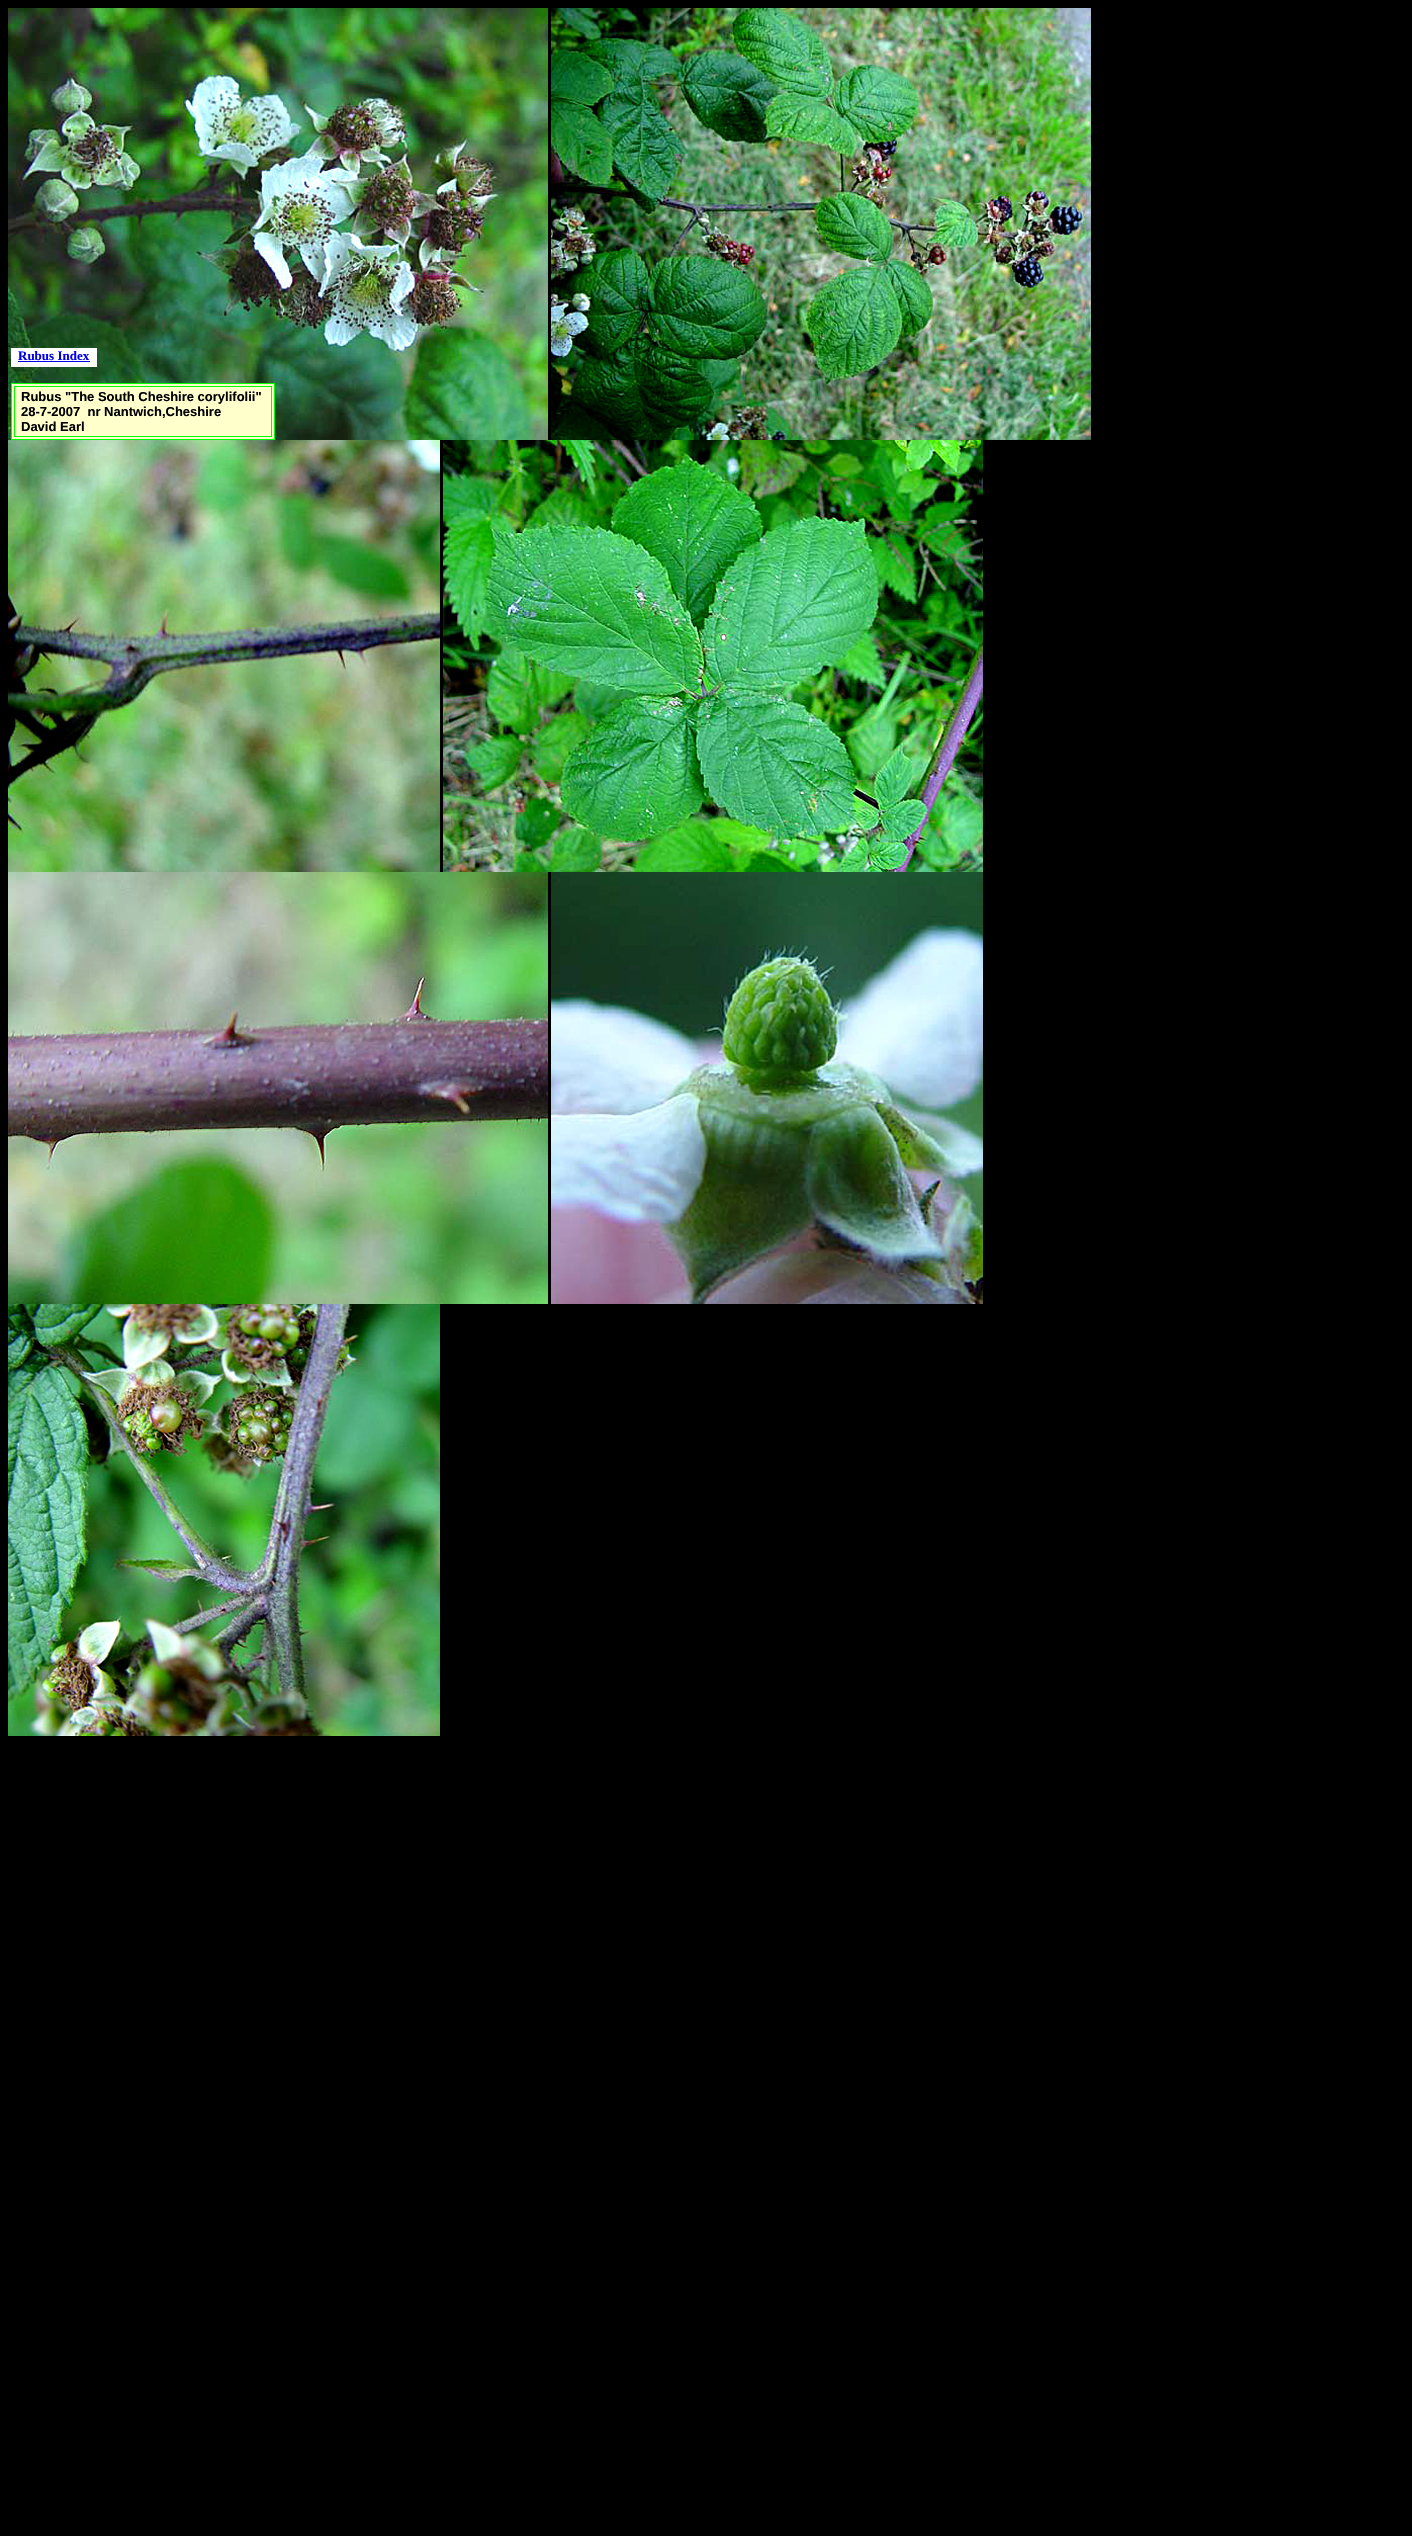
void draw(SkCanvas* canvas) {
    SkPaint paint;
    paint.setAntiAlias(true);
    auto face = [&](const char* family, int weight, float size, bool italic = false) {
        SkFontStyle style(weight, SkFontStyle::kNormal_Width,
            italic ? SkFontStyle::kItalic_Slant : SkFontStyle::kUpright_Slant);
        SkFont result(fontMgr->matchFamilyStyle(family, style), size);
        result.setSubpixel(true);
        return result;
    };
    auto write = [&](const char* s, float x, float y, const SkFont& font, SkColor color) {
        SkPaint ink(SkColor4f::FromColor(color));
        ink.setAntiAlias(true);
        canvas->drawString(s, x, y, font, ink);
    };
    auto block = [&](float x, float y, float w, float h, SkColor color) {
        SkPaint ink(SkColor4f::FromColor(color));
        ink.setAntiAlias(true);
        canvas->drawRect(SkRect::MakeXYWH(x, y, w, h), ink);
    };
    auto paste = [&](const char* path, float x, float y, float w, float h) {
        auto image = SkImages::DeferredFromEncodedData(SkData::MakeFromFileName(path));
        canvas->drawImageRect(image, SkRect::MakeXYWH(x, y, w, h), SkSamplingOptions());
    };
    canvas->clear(SK_ColorBLACK);
    paste("pic1.png", 8, 8, 540, 432);
    paste("pic2.png", 551, 8, 540, 432);
    block(11, 348, 86, 19, SK_ColorWHITE);
    auto kFont1 = face("Liberation Serif", 700, 13);
    write("Rubus Index", 18, 360, kFont1, SkColorSetRGB(0, 0, 238));
    block(18, 361, 72, 1, SkColorSetRGB(0, 0, 238));
    paint.setColor(SkColorSetRGB(255, 255, 204));
    canvas->drawRect(SkRect::MakeXYWH(11.5f, 383.5f, 263, 56), paint);
    paint.setStyle(SkPaint::kStroke_Style);
    paint.setStrokeWidth(1);
    paint.setColor(SkColorSetRGB(0, 255, 0));
    canvas->drawRect(SkRect::MakeXYWH(11.5f, 383.5f, 263, 56), paint);
    canvas->drawRect(SkRect::MakeXYWH(14.5f, 386.5f, 257, 50), paint);
    auto kFont2 = face("Liberation Sans", 700, 13);
    write("Rubus \"The South Cheshire corylifolii\"", 21, 401, kFont2, SK_ColorBLACK);
    write("28-7-2007  nr Nantwich,Cheshire", 21, 416, kFont2, SK_ColorBLACK);
    write("David Earl", 21, 431, kFont2, SK_ColorBLACK);
    paste("pic3.png", 8, 440, 432, 432);
    paste("pic4.png", 443, 440, 540, 432);
    paste("pic5.png", 8, 872, 540, 432);
    paste("pic6.png", 551, 872, 432, 432);
    paste("pic7.png", 8, 1304, 432, 432);
}
